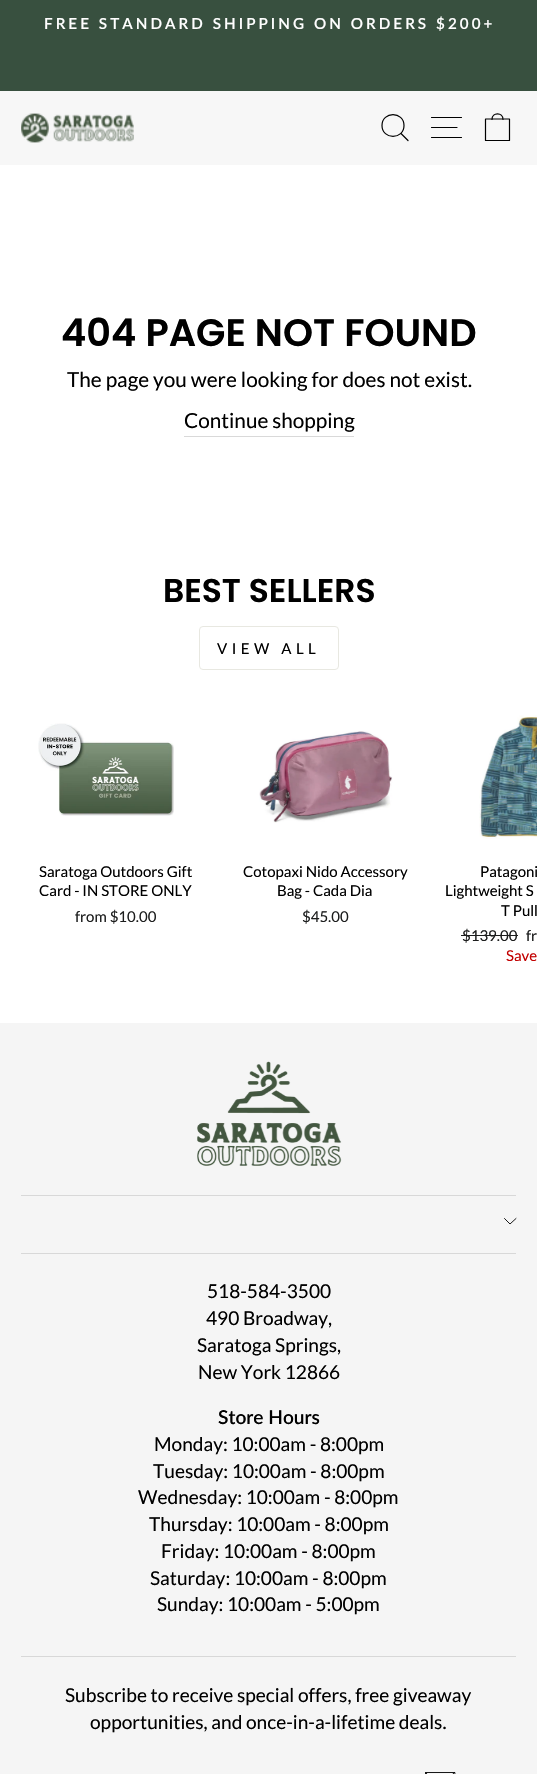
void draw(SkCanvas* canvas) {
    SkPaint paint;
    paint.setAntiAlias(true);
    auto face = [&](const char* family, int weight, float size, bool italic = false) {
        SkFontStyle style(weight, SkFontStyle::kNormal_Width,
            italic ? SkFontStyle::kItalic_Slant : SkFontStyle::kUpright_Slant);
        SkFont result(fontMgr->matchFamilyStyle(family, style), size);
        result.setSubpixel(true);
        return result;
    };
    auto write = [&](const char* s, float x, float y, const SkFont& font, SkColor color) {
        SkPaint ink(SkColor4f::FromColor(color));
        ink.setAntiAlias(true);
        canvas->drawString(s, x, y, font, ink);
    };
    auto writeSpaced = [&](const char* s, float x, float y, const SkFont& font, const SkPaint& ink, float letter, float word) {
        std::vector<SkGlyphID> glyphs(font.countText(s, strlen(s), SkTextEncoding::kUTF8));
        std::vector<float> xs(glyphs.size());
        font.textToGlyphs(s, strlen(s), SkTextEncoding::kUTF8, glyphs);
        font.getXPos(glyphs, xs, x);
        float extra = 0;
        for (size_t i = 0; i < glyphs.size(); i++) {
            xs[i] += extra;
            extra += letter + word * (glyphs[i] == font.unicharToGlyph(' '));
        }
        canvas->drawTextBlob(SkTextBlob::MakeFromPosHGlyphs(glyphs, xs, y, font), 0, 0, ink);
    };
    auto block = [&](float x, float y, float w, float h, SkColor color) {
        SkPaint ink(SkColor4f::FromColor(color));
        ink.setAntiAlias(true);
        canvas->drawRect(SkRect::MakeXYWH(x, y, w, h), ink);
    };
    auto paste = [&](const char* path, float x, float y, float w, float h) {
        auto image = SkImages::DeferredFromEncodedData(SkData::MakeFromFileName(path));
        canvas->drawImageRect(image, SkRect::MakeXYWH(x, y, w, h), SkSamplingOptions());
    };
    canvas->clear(SK_ColorWHITE);
    block(0, 0, 537, 91, SkColorSetRGB(56, 80, 63));
    auto kFont1 = face("Lato", 600, 15.2f);
    paint.setColor(SK_ColorWHITE);
    writeSpaced("FREE STANDARD SHIPPING ON ORDERS $200+", 44, 29, kFont1, paint, 3.05f, 0);
    block(0, 91, 537, 74, SkColorSetRGB(247, 247, 247));
    paste("pic1.png", 21, 113, 113, 30);
    paint.setStyle(SkPaint::kStroke_Style);
    paint.setStrokeWidth(1.2f);
    paint.setStrokeCap(SkPaint::kRound_Cap);
    paint.setStrokeJoin(SkPaint::kRound_Join);
    paint.setColor(SK_ColorBLACK);
    canvas->drawPath(SkPathBuilder().moveTo(404, 125.5f).cubicTo(404, 140, 382, 140, 382, 125.5f).cubicTo(382, 111, 404, 111, 404, 125.5f).close().moveTo(408, 140.5f).lineTo(401, 133.5f).detach(), paint);
    canvas->drawPath(SkPathBuilder().moveTo(431.5f, 117.5f).lineTo(461.5f, 117.5f).moveTo(431.5f, 127.5f).lineTo(457, 127.5f).moveTo(431.5f, 137.5f).lineTo(461.5f, 137.5f).detach(), paint);
    canvas->drawPath(SkPathBuilder().moveTo(485.5f, 119).lineTo(509.5f, 119).lineTo(509.5f, 140.5f).lineTo(485.5f, 140.5f).close().moveTo(492, 119.5f).cubicTo(492, 112, 503, 112, 503, 119.5f).detach(), paint);
    auto kFont2 = face("Poppins", 600, 38.25f);
    write("404 PAGE NOT FOUND", 61, 346, kFont2, SK_ColorBLACK);
    auto kFont3 = face("Lato", 400, 20.75f);
    write("The page you were looking for does not exist.", 67, 387, kFont3, SK_ColorBLACK);
    block(184, 436, 170, 1, SkColorSetRGB(217, 217, 217));
    write("Continue shopping", 184, 428, kFont3, SK_ColorBLACK);
    auto kFont4 = face("Poppins", 600, 33);
    write("BEST SELLERS", 163, 602, kFont4, SK_ColorBLACK);
    paint.setStrokeWidth(1);
    paint.setStrokeCap(SkPaint::kButt_Cap);
    paint.setStrokeJoin(SkPaint::kMiter_Join);
    paint.setColor(SkColorSetRGB(232, 232, 225));
    canvas->drawRoundRect(SkRect::MakeXYWH(199.5f, 626.5f, 139, 43), 3.5f, 3.5f, paint);
    auto kFont5 = face("Lato", 400, 15);
    paint.setStyle(SkPaint::kFill_Style);
    paint.setColor(SK_ColorBLACK);
    writeSpaced("VIEW ALL", 217, 654, kFont5, paint, 4.5f, 0);
    paste("pic2.png", 38, 723, 136, 93);
    write("Saratoga Outdoors Gift", 39, 877, kFont5, SK_ColorBLACK);
    write("Card - IN STORE ONLY", 39, 896, kFont5, SK_ColorBLACK);
    write("from $10.00", 75, 922, kFont5, SkColorSetRGB(28, 29, 29));
    paste("pic3.png", 259, 731, 134, 92);
    write("Cotopaxi Nido Accessory", 243, 877, kFont5, SK_ColorBLACK);
    write("Bag - Cada Dia", 277, 896, kFont5, SK_ColorBLACK);
    write("$45.00", 302, 922, kFont5, SkColorSetRGB(28, 29, 29));
    paste("pic4.png", 479, 715, 58, 124);
    write("Patagoni", 480, 877, kFont5, SK_ColorBLACK);
    write("Lightweight S", 445, 896, kFont5, SK_ColorBLACK);
    write("T Pull", 501, 916, kFont5, SK_ColorBLACK);
    write("$139.00", 462, 941, kFont5, SkColorSetRGB(28, 29, 29));
    block(461, 935, 57, 1, SkColorSetRGB(28, 29, 29));
    write("fr", 526, 941, kFont5, SkColorSetRGB(28, 29, 29));
    write("Save", 506, 961, kFont5, SkColorSetRGB(194, 0, 0));
    block(0, 1023, 537, 751, SkColorSetRGB(245, 245, 245));
    paste("pic5.png", 197, 1061, 145, 105);
    block(21, 1195, 495, 1, SkColorSetRGB(216, 216, 216));
    paint.setStyle(SkPaint::kStroke_Style);
    paint.setStrokeWidth(0.9f);
    paint.setStrokeCap(SkPaint::kRound_Cap);
    paint.setStrokeJoin(SkPaint::kRound_Join);
    canvas->drawPath(SkPathBuilder().moveTo(504.5f, 1218.5f).lineTo(510, 1224).lineTo(516, 1218.5f).detach(), paint);
    block(21, 1253, 495, 1, SkColorSetRGB(216, 216, 216));
    auto kFont6 = face("Lato", 400, 19.1f);
    write("518-584-3500", 207, 1298, kFont6, SK_ColorBLACK);
    write("490 Broadway,", 206, 1325, kFont6, SK_ColorBLACK);
    write("Saratoga Springs,", 197, 1352, kFont6, SK_ColorBLACK);
    write("New York 12866", 198, 1379, kFont6, SK_ColorBLACK);
    auto kFont7 = face("Lato", 600, 19.1f);
    write("Store Hours", 218, 1424, kFont7, SK_ColorBLACK);
    write("Monday: 10:00am - 8:00pm", 154, 1451, kFont6, SK_ColorBLACK);
    write("Tuesday: 10:00am - 8:00pm", 153, 1478, kFont6, SK_ColorBLACK);
    write("Wednesday: 10:00am - 8:00pm", 138, 1504, kFont6, SK_ColorBLACK);
    write("Thursday: 10:00am - 8:00pm", 149, 1531, kFont6, SK_ColorBLACK);
    write("Friday: 10:00am - 8:00pm", 161, 1558, kFont6, SK_ColorBLACK);
    write("Saturday: 10:00am - 8:00pm", 150, 1585, kFont6, SK_ColorBLACK);
    write("Sunday: 10:00am - 5:00pm", 157, 1611, kFont6, SK_ColorBLACK);
    block(21, 1656, 495, 1, SkColorSetRGB(216, 216, 216));
    write("Subscribe to receive special offers, free giveaway", 65, 1702, kFont6, SK_ColorBLACK);
    write("opportunities, and once-in-a-lifetime deals.", 90, 1729, kFont6, SK_ColorBLACK);
    canvas->drawPath(SkPathBuilder().moveTo(454.5f, 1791.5f).lineTo(425.5f, 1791.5f).lineTo(425.5f, 1772.5f).lineTo(454.5f, 1772.5f).close().moveTo(425.5f, 1772.5f).lineTo(437.5f, 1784).lineTo(442, 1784).lineTo(454.5f, 1772.5f).moveTo(435, 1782).lineTo(425.5f, 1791).moveTo(454, 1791.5f).lineTo(444.5f, 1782).detach(), paint);
}
